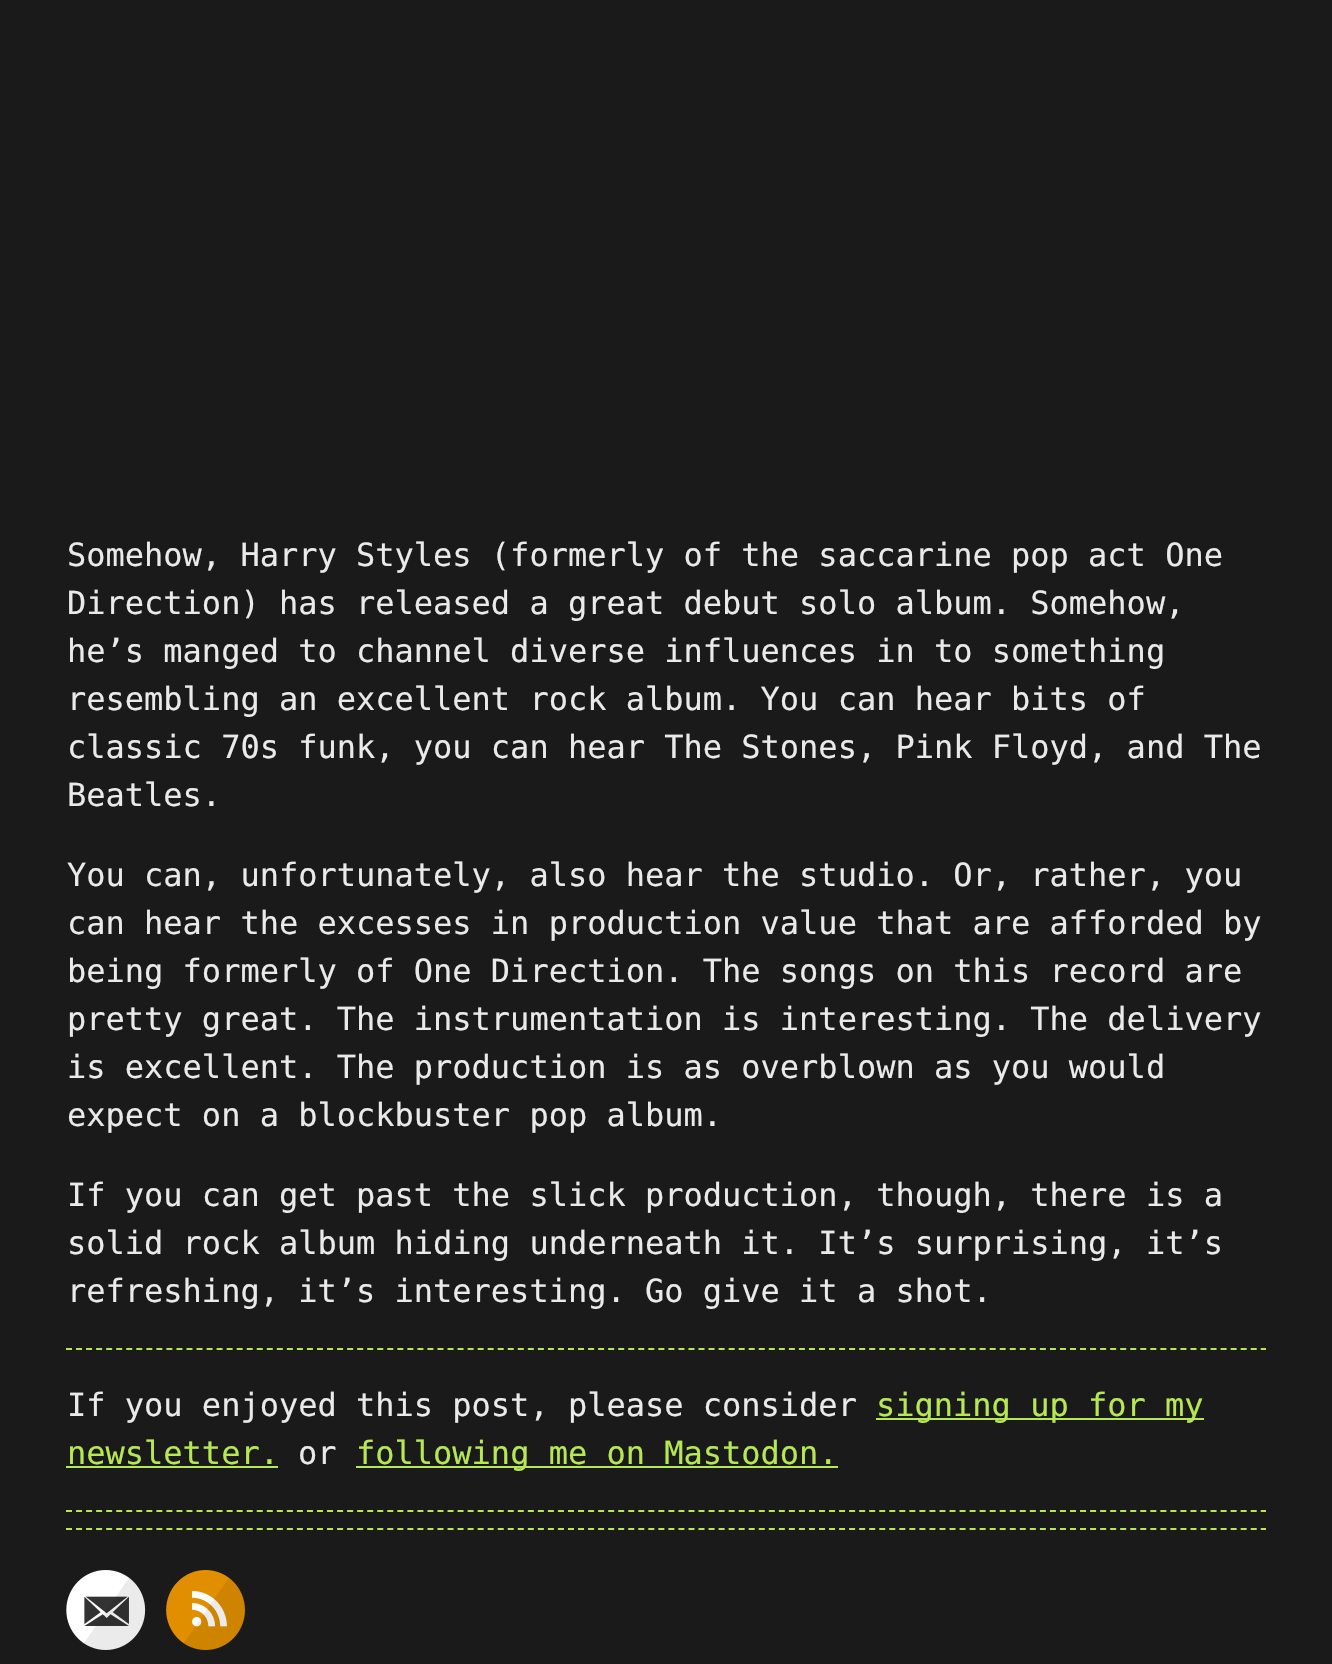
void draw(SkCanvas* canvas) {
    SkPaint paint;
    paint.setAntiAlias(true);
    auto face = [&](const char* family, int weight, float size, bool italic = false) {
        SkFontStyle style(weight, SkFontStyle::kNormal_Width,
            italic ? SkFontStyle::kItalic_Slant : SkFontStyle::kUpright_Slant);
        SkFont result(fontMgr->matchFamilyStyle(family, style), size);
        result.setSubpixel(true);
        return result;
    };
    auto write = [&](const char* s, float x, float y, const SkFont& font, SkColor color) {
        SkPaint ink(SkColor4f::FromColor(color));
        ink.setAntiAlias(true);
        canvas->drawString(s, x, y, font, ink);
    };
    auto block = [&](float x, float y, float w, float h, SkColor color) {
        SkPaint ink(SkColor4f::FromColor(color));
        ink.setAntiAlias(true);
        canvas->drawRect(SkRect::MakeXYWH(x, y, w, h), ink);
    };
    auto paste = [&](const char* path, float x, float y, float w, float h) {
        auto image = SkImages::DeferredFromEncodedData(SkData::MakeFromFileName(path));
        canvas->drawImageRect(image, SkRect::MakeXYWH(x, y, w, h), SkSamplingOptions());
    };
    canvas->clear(SkColorSetRGB(26, 26, 26));
    auto kFont1 = face("DejaVu Sans Mono", 400, 32);
    write("Somehow, Harry Styles (formerly of the saccarine pop act One", 67, 566, kFont1, SkColorSetRGB(234, 234, 234));
    write("Direction) has released a great debut solo album. Somehow,", 67, 614, kFont1, SkColorSetRGB(234, 234, 234));
    write("he’s manged to channel diverse influences in to something", 67, 662, kFont1, SkColorSetRGB(234, 234, 234));
    write("resembling an excellent rock album. You can hear bits of", 67, 710, kFont1, SkColorSetRGB(234, 234, 234));
    write("classic 70s funk, you can hear The Stones, Pink Floyd, and The", 67, 758, kFont1, SkColorSetRGB(234, 234, 234));
    write("Beatles.", 67, 806, kFont1, SkColorSetRGB(234, 234, 234));
    write("You can, unfortunately, also hear the studio. Or, rather, you", 67, 886, kFont1, SkColorSetRGB(234, 234, 234));
    write("can hear the excesses in production value that are afforded by", 67, 934, kFont1, SkColorSetRGB(234, 234, 234));
    write("being formerly of One Direction. The songs on this record are", 67, 982, kFont1, SkColorSetRGB(234, 234, 234));
    write("pretty great. The instrumentation is interesting. The delivery", 67, 1030, kFont1, SkColorSetRGB(234, 234, 234));
    write("is excellent. The production is as overblown as you would", 67, 1078, kFont1, SkColorSetRGB(234, 234, 234));
    write("expect on a blockbuster pop album.", 67, 1126, kFont1, SkColorSetRGB(234, 234, 234));
    write("If you can get past the slick production, though, there is a", 67, 1206, kFont1, SkColorSetRGB(234, 234, 234));
    write("solid rock album hiding underneath it. It’s surprising, it’s", 67, 1254, kFont1, SkColorSetRGB(234, 234, 234));
    write("refreshing, it’s interesting. Go give it a shot.", 67, 1302, kFont1, SkColorSetRGB(234, 234, 234));
    paint.setStyle(SkPaint::kStroke_Style);
    paint.setStrokeWidth(2);
    paint.setColor(SkColorSetRGB(181, 232, 83));
    paint.setPathEffect(SkDashPathEffect::Make({{6, 4.04f}}, 0));
    canvas->drawPath(SkPathBuilder().moveTo(66, 1349).lineTo(1266, 1349).detach(), paint);
    paint.setPathEffect(nullptr);
    write("If you enjoyed this post, please consider", 67, 1416, kFont1, SkColorSetRGB(234, 234, 234));
    block(876, 1418, 328, 2, SkColorSetRGB(181, 232, 83));
    write("signing up for my", 876, 1416, kFont1, SkColorSetRGB(181, 232, 83));
    write("newsletter.", 67, 1464, kFont1, SkColorSetRGB(181, 232, 83));
    block(66, 1466, 212, 2, SkColorSetRGB(181, 232, 83));
    write("or", 298, 1464, kFont1, SkColorSetRGB(234, 234, 234));
    block(356, 1466, 482, 2, SkColorSetRGB(181, 232, 83));
    write("following me on Mastodon.", 356, 1464, kFont1, SkColorSetRGB(181, 232, 83));
    paint.setPathEffect(SkDashPathEffect::Make({{6, 4.04f}}, 0));
    canvas->drawPath(SkPathBuilder().moveTo(66, 1511).lineTo(1266, 1511).detach(), paint);
    paint.setPathEffect(nullptr);
    paint.setPathEffect(SkDashPathEffect::Make({{6, 4.04f}}, 0));
    canvas->drawPath(SkPathBuilder().moveTo(66, 1529).lineTo(1266, 1529).detach(), paint);
    paint.setPathEffect(nullptr);
    paste("pic1.png", 66, 1570, 80, 80);
    paste("pic2.png", 166, 1570, 79, 80);
}
